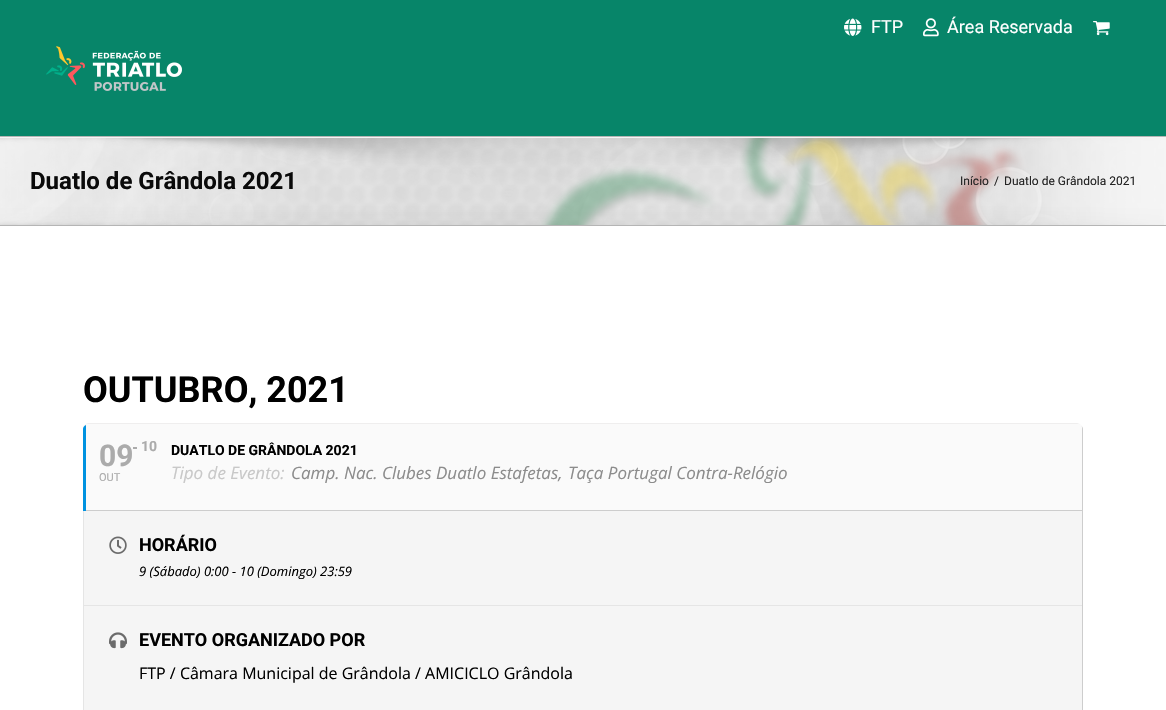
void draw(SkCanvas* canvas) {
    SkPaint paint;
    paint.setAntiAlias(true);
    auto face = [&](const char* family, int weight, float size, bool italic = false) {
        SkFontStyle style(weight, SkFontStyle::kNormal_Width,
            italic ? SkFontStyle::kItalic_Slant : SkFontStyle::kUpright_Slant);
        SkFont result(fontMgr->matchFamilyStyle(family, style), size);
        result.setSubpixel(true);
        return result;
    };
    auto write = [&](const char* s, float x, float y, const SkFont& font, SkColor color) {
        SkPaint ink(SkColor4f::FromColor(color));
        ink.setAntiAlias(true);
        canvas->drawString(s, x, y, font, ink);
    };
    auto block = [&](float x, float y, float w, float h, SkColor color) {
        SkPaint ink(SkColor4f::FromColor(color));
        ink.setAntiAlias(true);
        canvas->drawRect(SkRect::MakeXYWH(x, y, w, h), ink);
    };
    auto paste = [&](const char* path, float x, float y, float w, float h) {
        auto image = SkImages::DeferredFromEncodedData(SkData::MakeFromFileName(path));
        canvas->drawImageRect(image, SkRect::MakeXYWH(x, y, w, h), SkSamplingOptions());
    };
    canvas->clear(SK_ColorWHITE);
    block(0, 0, 1166, 136, SkColorSetRGB(7, 133, 105));
    paste("pic1.png", 844, 18, 18, 18);
    auto kFont1 = face("Roboto", 400, 18);
    write("FTP", 871, 33, kFont1, SK_ColorWHITE);
    paste("pic2.png", 923, 18, 16, 19);
    write("Área Reservada", 947, 33, kFont1, SK_ColorWHITE);
    paste("pic3.png", 1093, 21, 17, 15);
    paste("pic4.png", 46, 46, 136, 45);
    block(0, 137, 1166, 88, SkColorSetRGB(245, 245, 245));
    paste("pic5.png", 0, 138, 1164, 87);
    block(0, 136, 1166, 1, SkColorSetRGB(181, 181, 181));
    block(0, 225, 1166, 1, SkColorSetRGB(181, 181, 181));
    auto kFont2 = face("Roboto", 700, 24);
    write("Duatlo de Grândola 2021", 30, 189, kFont2, SkColorSetRGB(10, 10, 10));
    auto kFont3 = face("Roboto", 400, 12);
    write("Início", 960, 185, kFont3, SkColorSetRGB(36, 36, 36));
    write("/", 994, 185, kFont3, SkColorSetRGB(36, 36, 36));
    write("Duatlo de Grândola 2021", 1004, 185, kFont3, SkColorSetRGB(36, 36, 36));
    auto kFont4 = face("Roboto", 700, 36);
    write("OUTUBRO, 2021", 83, 402, kFont4, SK_ColorBLACK);
    paint.setColor(SkColorSetRGB(239, 238, 238));
    canvas->drawPath(SkPathBuilder().moveTo(89, 423).lineTo(1077, 423).cubicTo(1078, 423, 1080, 424, 1081, 425).cubicTo(1080, 424, 1078, 424, 1077, 424).lineTo(89, 424).cubicTo(86, 424, 83, 426, 83, 429).cubicTo(83, 426, 86, 423, 89, 423).close().detach(), paint);
    paint.setColor(SkColorSetRGB(205, 205, 205));
    canvas->drawPath(SkPathBuilder().moveTo(1081, 425).cubicTo(1082, 426, 1082, 428, 1082, 429).lineTo(1082, 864).cubicTo(1082, 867, 1080, 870, 1077, 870).cubicTo(1080, 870, 1083, 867, 1083, 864).lineTo(1083, 429).cubicTo(1083, 428, 1082, 426, 1081, 425).close().detach(), paint);
    paint.setColor(SkColorSetRGB(250, 250, 250));
    canvas->drawPath(SkPathBuilder().moveTo(89, 424).cubicTo(86, 424, 83, 426, 83, 429).lineTo(83, 511).lineTo(1082, 511).lineTo(1082, 429).cubicTo(1082, 426, 1080, 424, 1077, 424).close().detach(), paint);
    paint.setColor(SkColorSetRGB(0, 146, 224));
    canvas->drawPath(SkPathBuilder().moveTo(86, 425).cubicTo(84, 426, 83, 427, 83, 429).lineTo(83, 511).lineTo(86, 511).close().detach(), paint);
    auto kFont5 = face("Roboto", 700, 30);
    write("09", 99, 466, kFont5, SkColorSetRGB(171, 171, 171));
    auto kFont6 = face("Roboto", 400, 11);
    write("OUT", 99, 481, kFont6, SkColorSetRGB(171, 171, 171));
    block(133, 447, 4, 2, SkColorSetRGB(171, 171, 171));
    auto kFont7 = face("Roboto", 700, 14);
    write("10", 141, 451, kFont7, SkColorSetRGB(171, 171, 171));
    write("DUATLO DE GRÂNDOLA 2021", 171, 455, kFont7, SK_ColorBLACK);
    auto kFont8 = face("Open Sans", 400, 17, true);
    write("Tipo de Evento:", 171, 479, kFont8, SkColorSetRGB(200, 200, 200));
    write("Camp. Nac. Clubes Duatlo Estafetas,", 291, 479, kFont8, SkColorSetRGB(140, 140, 140));
    write("Taça Portugal Contra-Relógio", 568, 479, kFont8, SkColorSetRGB(140, 140, 140));
    block(86, 510, 996, 1, SkColorSetRGB(205, 205, 205));
    paint.setColor(SkColorSetRGB(245, 245, 245));
    canvas->drawPath(SkPathBuilder().moveTo(83, 511).lineTo(83, 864).cubicTo(83, 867, 86, 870, 89, 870).lineTo(1077, 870).cubicTo(1080, 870, 1082, 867, 1082, 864).lineTo(1082, 511).close().detach(), paint);
    paint.setColor(SkColorSetRGB(229, 229, 229));
    canvas->drawPath(SkPathBuilder().moveTo(83, 511).lineTo(83, 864).lineTo(84, 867).lineTo(84, 511).close().detach(), paint);
    block(84, 605, 998, 1, SkColorSetRGB(229, 229, 229));
    paste("pic6.png", 109, 536, 18, 18);
    auto kFont9 = face("Roboto", 700, 18);
    write("HORÁRIO", 139, 551, kFont9, SK_ColorBLACK);
    auto kFont10 = face("Open Sans", 400, 13, true);
    write("9 (Sábado) 0:00 - 10 (Domingo) 23:59", 139, 576, kFont10, SK_ColorBLACK);
    paste("pic7.png", 109, 632, 18, 17);
    write("EVENTO ORGANIZADO POR", 139, 646, kFont9, SK_ColorBLACK);
    auto kFont11 = face("Open Sans", 400, 16);
    write("FTP / Câmara Municipal de Grândola / AMICICLO Grândola", 139, 679, kFont11, SK_ColorBLACK);
}
